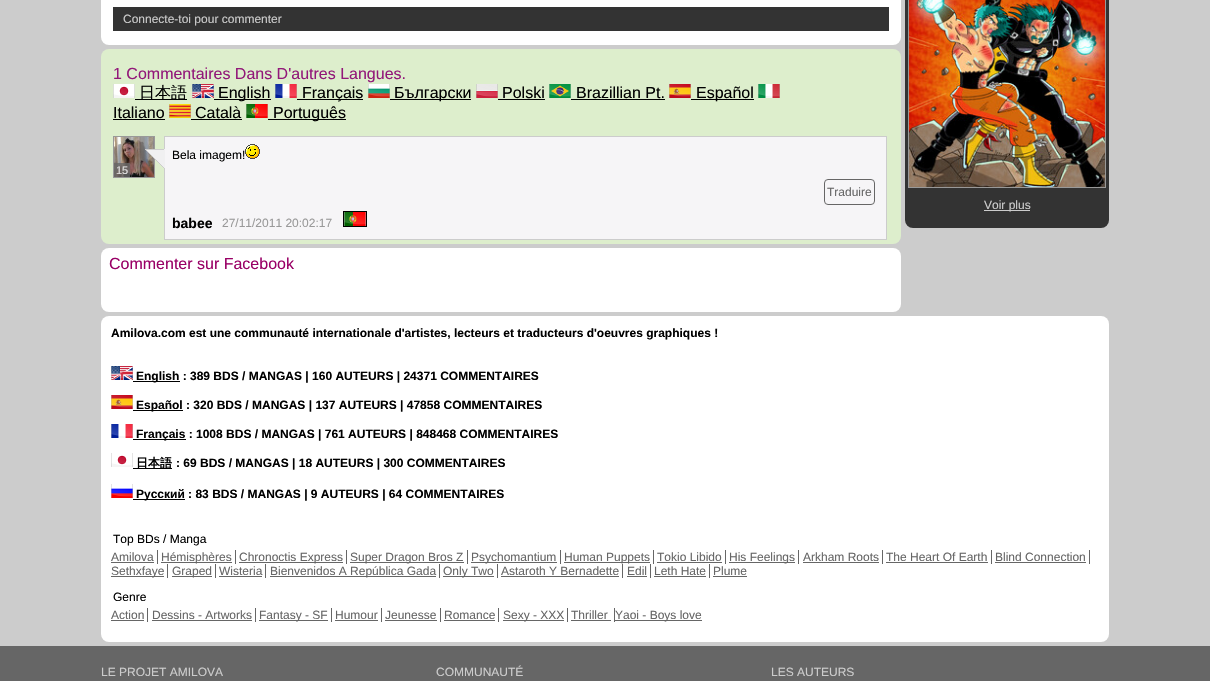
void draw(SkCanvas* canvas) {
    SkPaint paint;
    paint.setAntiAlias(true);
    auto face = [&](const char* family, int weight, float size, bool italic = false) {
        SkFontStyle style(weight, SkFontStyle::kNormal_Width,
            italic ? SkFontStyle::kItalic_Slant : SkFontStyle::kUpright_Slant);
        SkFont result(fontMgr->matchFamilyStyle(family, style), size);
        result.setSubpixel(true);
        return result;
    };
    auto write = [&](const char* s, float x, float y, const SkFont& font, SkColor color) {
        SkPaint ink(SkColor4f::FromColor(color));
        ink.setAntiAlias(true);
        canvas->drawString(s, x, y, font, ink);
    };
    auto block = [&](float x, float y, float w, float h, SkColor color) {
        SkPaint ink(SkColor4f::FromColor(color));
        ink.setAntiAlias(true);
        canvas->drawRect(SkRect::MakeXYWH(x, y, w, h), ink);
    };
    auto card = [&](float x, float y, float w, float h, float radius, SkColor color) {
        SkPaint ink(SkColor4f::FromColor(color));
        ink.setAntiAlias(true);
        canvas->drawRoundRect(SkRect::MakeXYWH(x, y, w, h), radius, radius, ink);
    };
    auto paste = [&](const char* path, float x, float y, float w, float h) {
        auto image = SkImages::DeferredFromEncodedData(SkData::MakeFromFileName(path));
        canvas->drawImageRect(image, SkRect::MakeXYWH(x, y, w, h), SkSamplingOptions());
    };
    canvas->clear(SkColorSetRGB(204, 204, 204));
    card(101, -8, 800, 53, 8, SK_ColorWHITE);
    block(113, 7, 776, 24, SkColorSetRGB(51, 51, 51));
    auto kFont1 = face("Liberation Sans", 400, 12);
    write("Connecte-toi pour commenter", 123, 23, kFont1, SkColorSetRGB(204, 204, 204));
    card(101, 49, 800, 195, 8, SkColorSetRGB(221, 238, 204));
    auto kFont2 = face("Liberation Sans", 400, 16);
    write("1 Commentaires Dans D'autres Langues.", 113, 79, kFont2, SkColorSetRGB(146, 24, 121));
    paste("pic1.png", 113, 84, 22, 14);
    block(135, 99, 52, 1, SK_ColorBLACK);
    auto kFont3 = face("WenQuanYi Zen Hei", 500, 16);
    write("日本語", 139, 98, kFont3, SK_ColorBLACK);
    paste("pic2.png", 192, 84, 22, 14);
    block(214, 99, 57, 1, SK_ColorBLACK);
    write("English", 218, 98, kFont2, SK_ColorBLACK);
    paste("pic3.png", 275, 84, 22, 14);
    block(297, 99, 66, 1, SK_ColorBLACK);
    write("Français", 302, 98, kFont2, SK_ColorBLACK);
    paste("pic4.png", 368, 84, 22, 14);
    block(390, 99, 81, 1, SK_ColorBLACK);
    write("Български", 394, 98, kFont2, SK_ColorBLACK);
    paste("pic5.png", 476, 84, 22, 14);
    write("Polski", 502, 98, kFont2, SK_ColorBLACK);
    block(498, 99, 47, 1, SK_ColorBLACK);
    paste("pic6.png", 549, 84, 22, 14);
    write("Brazillian Pt.", 576, 98, kFont2, SK_ColorBLACK);
    block(571, 99, 94, 1, SK_ColorBLACK);
    paste("pic7.png", 669, 84, 22, 14);
    block(691, 99, 63, 1, SK_ColorBLACK);
    write("Español", 696, 98, kFont2, SK_ColorBLACK);
    paste("pic8.png", 758, 84, 22, 14);
    write("Italiano", 113, 118, kFont2, SK_ColorBLACK);
    block(113, 119, 52, 1, SK_ColorBLACK);
    paste("pic9.png", 169, 104, 22, 14);
    write("Català", 195, 118, kFont2, SK_ColorBLACK);
    block(191, 119, 51, 1, SK_ColorBLACK);
    paste("pic10.png", 246, 104, 22, 14);
    block(268, 119, 78, 1, SK_ColorBLACK);
    write("Português", 273, 118, kFont2, SK_ColorBLACK);
    paint.setStyle(SkPaint::kStroke_Style);
    paint.setStrokeWidth(1);
    paint.setColor(SkColorSetRGB(153, 153, 153));
    canvas->drawRect(SkRect::MakeXYWH(113.5f, 136.5f, 41, 41), paint);
    paste("pic11.png", 114, 137, 40, 40);
    block(114, 163, 16, 14, SkColorSetARGB(204, 102, 102, 102));
    auto kFont4 = face("Liberation Sans", 400, 11);
    write("15", 116, 174, kFont4, SkColorSetRGB(225, 224, 224));
    paint.setStyle(SkPaint::kFill_Style);
    paint.setColor(SkColorSetRGB(246, 245, 247));
    canvas->drawRect(SkRect::MakeXYWH(164.5f, 136.5f, 722, 103), paint);
    paint.setStyle(SkPaint::kStroke_Style);
    paint.setColor(SkColorSetRGB(204, 204, 204));
    canvas->drawRect(SkRect::MakeXYWH(164.5f, 136.5f, 722, 103), paint);
    paste("pic12.png", 145, 149, 20, 19);
    write("Bela imagem!", 172, 159, kFont1, SK_ColorBLACK);
    paste("pic13.png", 245, 144, 15, 15);
    paint.setColor(SkColorSetRGB(102, 102, 102));
    canvas->drawRoundRect(SkRect::MakeXYWH(824.5f, 179.5f, 50, 25), 3.5f, 3.5f, paint);
    write("Traduire", 827, 196, kFont1, SkColorSetRGB(102, 102, 102));
    paint.setColor(SK_ColorBLACK);
    canvas->drawRect(SkRect::MakeXYWH(343.5f, 211.5f, 23, 15), paint);
    auto kFont5 = face("Liberation Sans", 700, 14);
    write("babee", 172, 228, kFont5, SK_ColorBLACK);
    write("27/11/2011 20:02:17", 222, 227, kFont1, SkColorSetRGB(153, 153, 153));
    paste("pic14.png", 344, 212, 22, 14);
    card(101, 248, 800, 64, 8, SK_ColorWHITE);
    write("Commenter sur Facebook", 109, 269, kFont2, SkColorSetRGB(153, 0, 102));
    card(905, -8, 204, 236, 8, SkColorSetRGB(51, 51, 51));
    paint.setColor(SkColorSetRGB(153, 153, 153));
    canvas->drawRect(SkRect::MakeXYWH(908.5f, -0.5f, 197, 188), paint);
    paste("pic15.png", 909, 0, 196, 187);
    block(984, 210, 46, 1, SkColorSetRGB(204, 204, 204));
    write("Voir plus", 984, 209, kFont1, SkColorSetRGB(204, 204, 204));
    card(101, 316, 1008, 326, 8, SK_ColorWHITE);
    auto kFont6 = face("Liberation Sans", 700, 12);
    write("Amilova.com est une communauté internationale d'artistes, lecteurs et traducteurs d'oeuvres graphiques !", 111, 337, kFont6, SK_ColorBLACK);
    paste("pic2.png", 111, 366, 22, 14);
    block(133, 381, 47, 1, SK_ColorBLACK);
    write("English : 389 BDS / MANGAS | 160 AUTEURS | 24371 COMMENTAIRES", 136, 380, kFont6, SK_ColorBLACK);
    paste("pic16.png", 111, 395, 22, 14);
    block(133, 410, 50, 1, SK_ColorBLACK);
    write("Español : 320 BDS / MANGAS | 137 AUTEURS | 47858 COMMENTAIRES", 136, 409, kFont6, SK_ColorBLACK);
    paste("pic17.png", 111, 424, 22, 14);
    block(133, 439, 53, 1, SK_ColorBLACK);
    write("Français : 1008 BDS / MANGAS | 761 AUTEURS | 848468 COMMENTAIRES", 136, 438, kFont6, SK_ColorBLACK);
    paste("pic18.png", 111, 453, 22, 14);
    block(133, 468, 39, 1, SK_ColorBLACK);
    auto kFont7 = face("WenQuanYi Zen Hei", 700, 12);
    write("日本語", 136, 467, kFont7, SK_ColorBLACK);
    write(": 69 BDS / MANGAS | 18 AUTEURS | 300 COMMENTAIRES", 176, 467, kFont6, SK_ColorBLACK);
    paste("pic19.png", 111, 484, 22, 14);
    block(133, 499, 52, 1, SK_ColorBLACK);
    write("Русский : 83 BDS / MANGAS | 9 AUTEURS | 64 COMMENTAIRES", 136, 498, kFont6, SK_ColorBLACK);
    write("Top BDs / Manga", 113, 543, kFont1, SK_ColorBLACK);
    write("Amilova", 111, 561, kFont1, SkColorSetRGB(102, 102, 102));
    block(157, 550, 1, 14, SkColorSetRGB(102, 102, 102));
    block(111, 562, 43, 1, SkColorSetRGB(102, 102, 102));
    block(161, 562, 71, 1, SkColorSetRGB(102, 102, 102));
    write("Hémisphères", 161, 561, kFont1, SkColorSetRGB(102, 102, 102));
    block(235, 550, 1, 14, SkColorSetRGB(102, 102, 102));
    block(239, 562, 104, 1, SkColorSetRGB(102, 102, 102));
    write("Chronoctis Express", 239, 561, kFont1, SkColorSetRGB(102, 102, 102));
    block(346, 550, 1, 14, SkColorSetRGB(102, 102, 102));
    block(350, 562, 114, 1, SkColorSetRGB(102, 102, 102));
    write("Super Dragon Bros Z", 350, 561, kFont1, SkColorSetRGB(102, 102, 102));
    block(467, 550, 1, 14, SkColorSetRGB(102, 102, 102));
    block(471, 562, 86, 1, SkColorSetRGB(102, 102, 102));
    write("Psychomantium", 471, 561, kFont1, SkColorSetRGB(102, 102, 102));
    block(560, 550, 1, 14, SkColorSetRGB(102, 102, 102));
    block(564, 562, 86, 1, SkColorSetRGB(102, 102, 102));
    write("Human Puppets", 564, 561, kFont1, SkColorSetRGB(102, 102, 102));
    block(653, 550, 1, 14, SkColorSetRGB(102, 102, 102));
    write("Tokio Libido", 657, 561, kFont1, SkColorSetRGB(102, 102, 102));
    block(725, 550, 1, 14, SkColorSetRGB(102, 102, 102));
    block(657, 562, 65, 1, SkColorSetRGB(102, 102, 102));
    block(729, 562, 66, 1, SkColorSetRGB(102, 102, 102));
    write("His Feelings", 729, 561, kFont1, SkColorSetRGB(102, 102, 102));
    block(798, 550, 1, 14, SkColorSetRGB(102, 102, 102));
    write("Arkham Roots", 803, 561, kFont1, SkColorSetRGB(102, 102, 102));
    block(882, 550, 1, 14, SkColorSetRGB(102, 102, 102));
    block(803, 562, 76, 1, SkColorSetRGB(102, 102, 102));
    write("The Heart Of Earth", 886, 561, kFont1, SkColorSetRGB(102, 102, 102));
    block(991, 550, 1, 14, SkColorSetRGB(102, 102, 102));
    block(886, 562, 102, 1, SkColorSetRGB(102, 102, 102));
    write("Blind Connection", 995, 561, kFont1, SkColorSetRGB(102, 102, 102));
    block(1089, 550, 1, 14, SkColorSetRGB(102, 102, 102));
    block(995, 562, 91, 1, SkColorSetRGB(102, 102, 102));
    block(111, 576, 53, 1, SkColorSetRGB(102, 102, 102));
    write("Sethxfaye", 111, 575, kFont1, SkColorSetRGB(102, 102, 102));
    block(167, 564, 1, 14, SkColorSetRGB(102, 102, 102));
    block(172, 576, 40, 1, SkColorSetRGB(102, 102, 102));
    write("Graped", 172, 575, kFont1, SkColorSetRGB(102, 102, 102));
    block(215, 564, 1, 14, SkColorSetRGB(102, 102, 102));
    write("Wisteria", 219, 575, kFont1, SkColorSetRGB(102, 102, 102));
    block(265, 564, 1, 14, SkColorSetRGB(102, 102, 102));
    block(219, 576, 43, 1, SkColorSetRGB(102, 102, 102));
    block(270, 576, 166, 1, SkColorSetRGB(102, 102, 102));
    write("Bienvenidos A República Gada", 270, 575, kFont1, SkColorSetRGB(102, 102, 102));
    block(439, 564, 1, 14, SkColorSetRGB(102, 102, 102));
    block(443, 576, 51, 1, SkColorSetRGB(102, 102, 102));
    write("Only Two", 443, 575, kFont1, SkColorSetRGB(102, 102, 102));
    block(497, 564, 1, 14, SkColorSetRGB(102, 102, 102));
    write("Astaroth Y Bernadette", 501, 575, kFont1, SkColorSetRGB(102, 102, 102));
    block(622, 564, 1, 14, SkColorSetRGB(102, 102, 102));
    block(501, 576, 118, 1, SkColorSetRGB(102, 102, 102));
    write("Edil", 627, 575, kFont1, SkColorSetRGB(102, 102, 102));
    block(650, 564, 1, 14, SkColorSetRGB(102, 102, 102));
    block(627, 576, 20, 1, SkColorSetRGB(102, 102, 102));
    write("Leth Hate", 654, 575, kFont1, SkColorSetRGB(102, 102, 102));
    block(709, 564, 1, 14, SkColorSetRGB(102, 102, 102));
    block(654, 576, 52, 1, SkColorSetRGB(102, 102, 102));
    write("Plume", 713, 575, kFont1, SkColorSetRGB(102, 102, 102));
    block(713, 576, 34, 1, SkColorSetRGB(102, 102, 102));
    write("Genre", 113, 601, kFont1, SK_ColorBLACK);
    write("Action", 111, 619, kFont1, SkColorSetRGB(102, 102, 102));
    block(147, 608, 1, 14, SkColorSetRGB(102, 102, 102));
    block(111, 620, 33, 1, SkColorSetRGB(102, 102, 102));
    write("Dessins - Artworks", 152, 619, kFont1, SkColorSetRGB(102, 102, 102));
    block(255, 608, 1, 14, SkColorSetRGB(102, 102, 102));
    block(152, 620, 100, 1, SkColorSetRGB(102, 102, 102));
    block(259, 620, 69, 1, SkColorSetRGB(102, 102, 102));
    write("Fantasy - SF", 259, 619, kFont1, SkColorSetRGB(102, 102, 102));
    block(331, 608, 1, 14, SkColorSetRGB(102, 102, 102));
    write("Humour", 335, 619, kFont1, SkColorSetRGB(102, 102, 102));
    block(381, 608, 1, 14, SkColorSetRGB(102, 102, 102));
    block(335, 620, 43, 1, SkColorSetRGB(102, 102, 102));
    write("Jeunesse", 385, 619, kFont1, SkColorSetRGB(102, 102, 102));
    block(440, 608, 1, 14, SkColorSetRGB(102, 102, 102));
    block(385, 620, 52, 1, SkColorSetRGB(102, 102, 102));
    write("Romance", 444, 619, kFont1, SkColorSetRGB(102, 102, 102));
    block(498, 608, 1, 14, SkColorSetRGB(102, 102, 102));
    block(444, 620, 51, 1, SkColorSetRGB(102, 102, 102));
    block(503, 620, 61, 1, SkColorSetRGB(102, 102, 102));
    write("Sexy - XXX", 503, 619, kFont1, SkColorSetRGB(102, 102, 102));
    block(567, 608, 1, 14, SkColorSetRGB(102, 102, 102));
    write("Thriller", 571, 619, kFont1, SkColorSetRGB(102, 102, 102));
    block(614, 608, 1, 14, SkColorSetRGB(102, 102, 102));
    block(571, 620, 40, 1, SkColorSetRGB(102, 102, 102));
    block(615, 620, 87, 1, SkColorSetRGB(102, 102, 102));
    write("Yaoi - Boys love", 615, 619, kFont1, SkColorSetRGB(102, 102, 102));
    block(0, 646, 1210, 35, SkColorSetRGB(102, 102, 102));
    write("LE PROJET AMILOVA", 101, 676, kFont1, SkColorSetRGB(204, 204, 204));
    write("COMMUNAUTÉ", 436, 676, kFont1, SkColorSetRGB(204, 204, 204));
    write("LES AUTEURS", 771, 676, kFont1, SkColorSetRGB(204, 204, 204));
}
